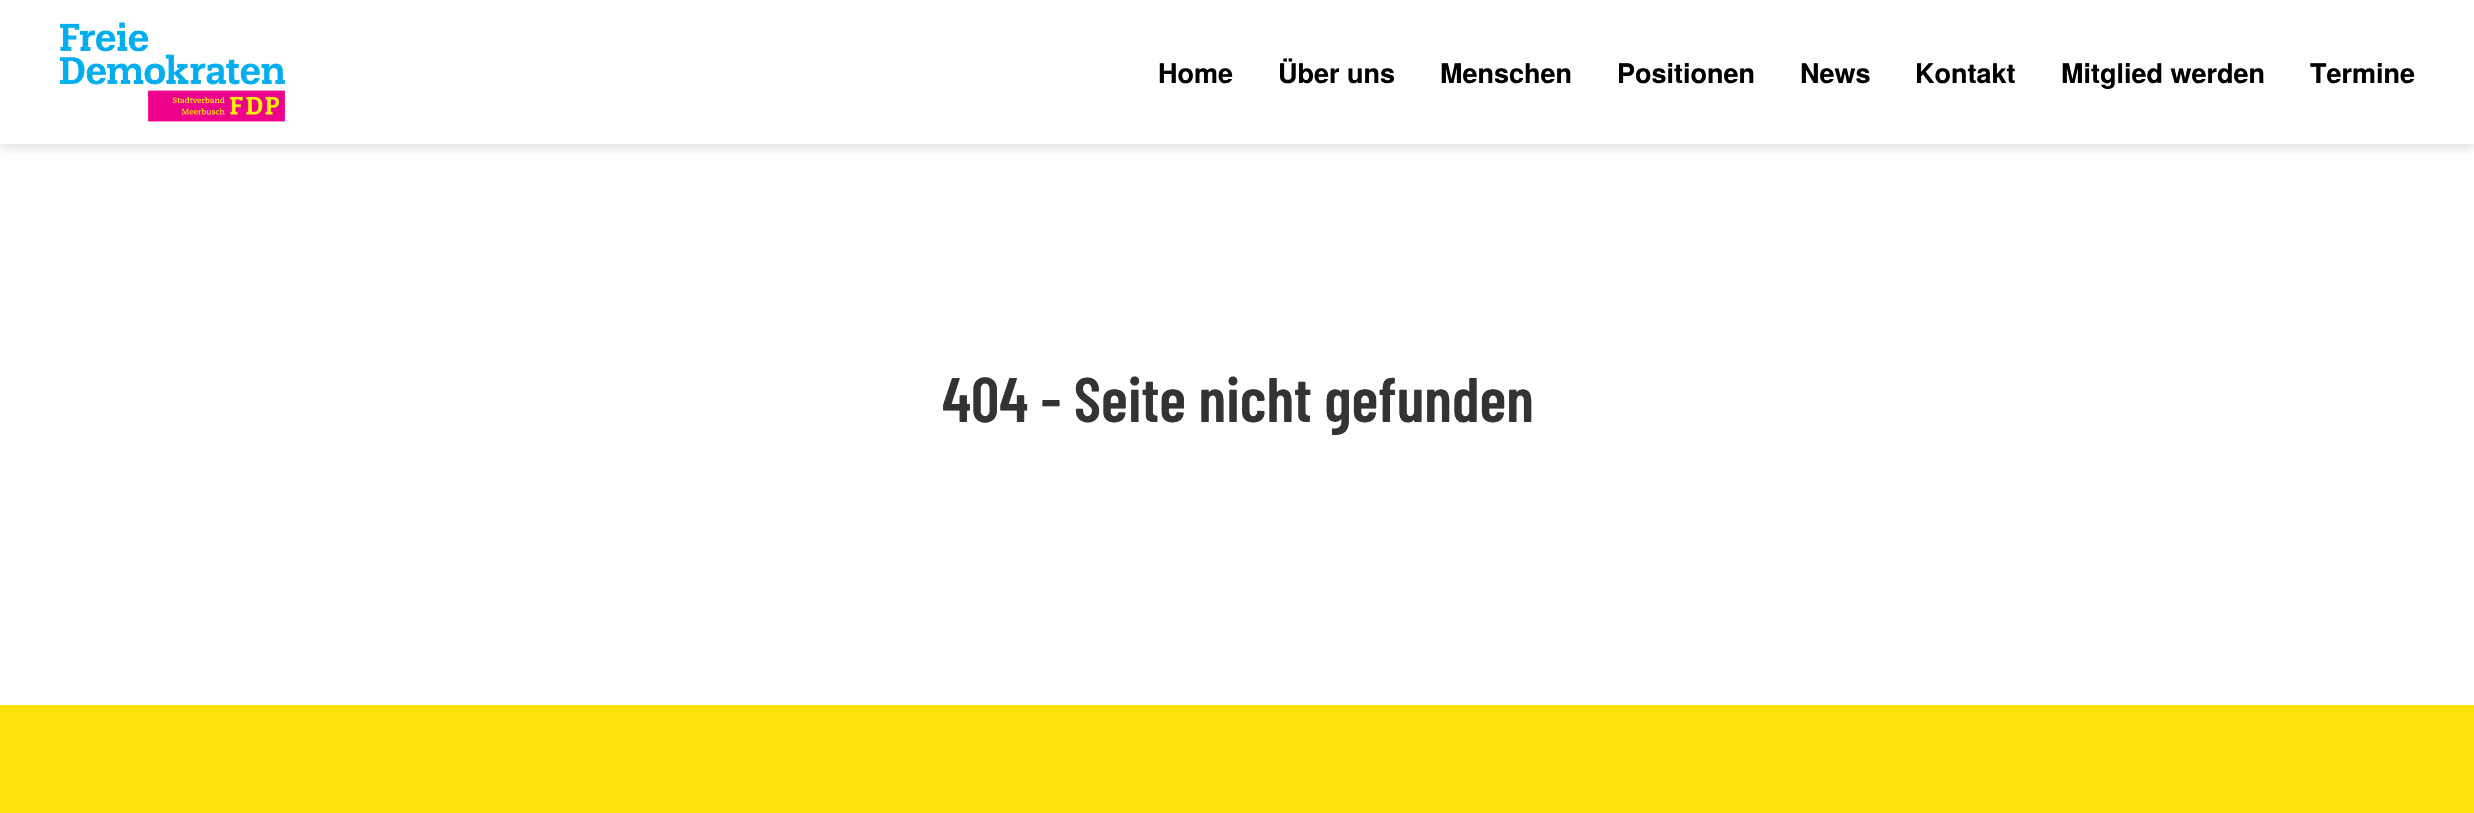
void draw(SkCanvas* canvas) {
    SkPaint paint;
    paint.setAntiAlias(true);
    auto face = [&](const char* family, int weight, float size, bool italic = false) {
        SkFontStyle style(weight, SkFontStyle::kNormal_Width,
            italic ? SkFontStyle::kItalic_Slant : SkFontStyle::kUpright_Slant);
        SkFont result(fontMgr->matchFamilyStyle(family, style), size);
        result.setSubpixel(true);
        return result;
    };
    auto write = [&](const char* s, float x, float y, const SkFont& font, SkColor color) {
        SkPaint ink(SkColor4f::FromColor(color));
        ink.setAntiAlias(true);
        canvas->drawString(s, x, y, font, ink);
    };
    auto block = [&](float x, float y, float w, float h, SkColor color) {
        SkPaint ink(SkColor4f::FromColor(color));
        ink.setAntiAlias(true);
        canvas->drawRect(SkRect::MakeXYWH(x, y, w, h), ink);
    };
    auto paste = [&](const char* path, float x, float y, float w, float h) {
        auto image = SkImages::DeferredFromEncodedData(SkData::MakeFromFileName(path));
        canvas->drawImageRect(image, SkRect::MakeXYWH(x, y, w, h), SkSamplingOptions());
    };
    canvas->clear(SK_ColorWHITE);
    canvas->save();
    canvas->clipRect(SkRect::MakeXYWH(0, 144, 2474, 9));
    paint.setColor(SkColorSetARGB(26, 0, 0, 0));
    paint.setMaskFilter(SkMaskFilter::MakeBlur(kNormal_SkBlurStyle, 4.5f));
    canvas->drawRect(SkRect::MakeXYWH(0, 5, 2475, 144), paint);
    paint.setMaskFilter(nullptr);
    canvas->restore();
    paste("pic1.png", 60, 22, 225, 100);
    auto kFont1 = face("TeX Gyre Heros", 700, 27);
    write("Home", 1158, 83, kFont1, SK_ColorBLACK);
    write("Über uns", 1278, 83, kFont1, SK_ColorBLACK);
    write("Menschen", 1440, 83, kFont1, SK_ColorBLACK);
    write("Positionen", 1617, 83, kFont1, SK_ColorBLACK);
    write("News", 1800, 83, kFont1, SK_ColorBLACK);
    write("Kontakt", 1915, 83, kFont1, SK_ColorBLACK);
    write("Mitglied werden", 2061, 83, kFont1, SK_ColorBLACK);
    write("Termine", 2310, 83, kFont1, SK_ColorBLACK);
    auto kFont2 = face("Barlow Condensed", 600, 63);
    write("404 - Seite nicht gefunden", 942, 422, kFont2, SkColorSetRGB(51, 51, 51));
    block(0, 705, 2474, 108, SkColorSetRGB(255, 226, 9));
}
